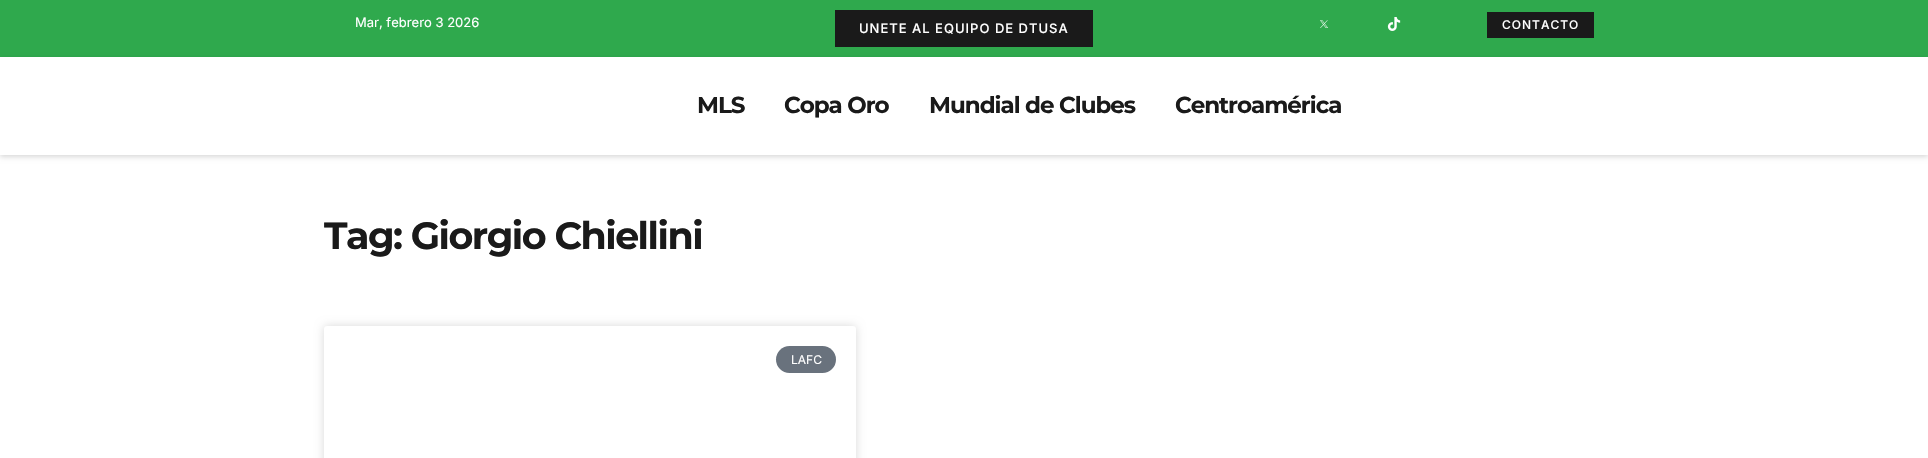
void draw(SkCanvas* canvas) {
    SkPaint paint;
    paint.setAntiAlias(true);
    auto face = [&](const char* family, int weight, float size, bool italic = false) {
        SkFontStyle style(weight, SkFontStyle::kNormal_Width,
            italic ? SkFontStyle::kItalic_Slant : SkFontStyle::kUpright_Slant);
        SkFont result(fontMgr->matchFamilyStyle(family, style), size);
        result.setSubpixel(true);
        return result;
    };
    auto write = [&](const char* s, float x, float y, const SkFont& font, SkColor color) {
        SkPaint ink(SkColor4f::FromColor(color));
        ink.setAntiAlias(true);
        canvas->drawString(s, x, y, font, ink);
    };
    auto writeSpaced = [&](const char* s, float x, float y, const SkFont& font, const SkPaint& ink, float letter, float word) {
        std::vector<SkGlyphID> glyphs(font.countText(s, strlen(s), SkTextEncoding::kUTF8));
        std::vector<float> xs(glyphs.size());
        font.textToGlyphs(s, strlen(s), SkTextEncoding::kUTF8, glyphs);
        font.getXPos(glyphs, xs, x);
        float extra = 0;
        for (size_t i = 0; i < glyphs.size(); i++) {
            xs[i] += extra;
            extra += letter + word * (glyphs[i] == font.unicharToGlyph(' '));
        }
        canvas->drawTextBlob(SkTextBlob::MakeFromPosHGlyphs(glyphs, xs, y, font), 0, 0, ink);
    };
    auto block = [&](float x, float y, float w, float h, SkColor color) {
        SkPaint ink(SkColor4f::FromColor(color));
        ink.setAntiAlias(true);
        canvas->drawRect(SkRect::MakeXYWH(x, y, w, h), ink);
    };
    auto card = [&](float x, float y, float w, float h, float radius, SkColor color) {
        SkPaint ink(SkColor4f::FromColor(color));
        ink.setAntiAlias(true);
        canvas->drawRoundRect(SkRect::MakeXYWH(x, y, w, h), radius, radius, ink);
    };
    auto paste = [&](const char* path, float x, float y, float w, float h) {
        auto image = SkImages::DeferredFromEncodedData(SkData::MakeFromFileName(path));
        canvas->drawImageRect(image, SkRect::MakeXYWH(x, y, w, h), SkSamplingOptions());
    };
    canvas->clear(SK_ColorWHITE);
    block(0, 0, 1928, 57, SkColorSetRGB(47, 169, 77));
    auto kFont1 = face("Inter", 400, 13);
    write("Mar, febrero 3 2026", 355, 27, kFont1, SK_ColorWHITE);
    block(835, 10, 258, 37, SkColorSetRGB(26, 26, 26));
    auto kFont2 = face("Inter", 500, 13);
    paint.setColor(SK_ColorWHITE);
    writeSpaced("UNETE AL EQUIPO DE DTUSA", 859, 33, kFont2, paint, 1, 0);
    paste("pic1.png", 1320, 20, 8, 8);
    paste("pic2.png", 1387, 17, 14, 14);
    block(1487, 12, 107, 26, SkColorSetRGB(26, 26, 26));
    auto kFont3 = face("Inter", 500, 12);
    writeSpaced("CONTACTO", 1502, 29, kFont3, paint, 1, 0);
    canvas->save();
    canvas->clipPath(SkPathBuilder(SkPathFillType::kEvenOdd).moveTo(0, 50).lineTo(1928, 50).lineTo(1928, 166).lineTo(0, 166).close().moveTo(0, 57).lineTo(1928, 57).lineTo(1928, 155).lineTo(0, 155).close().detach(), true);
    paint.setColor(SkColorSetARGB(38, 0, 0, 0));
    paint.setMaskFilter(SkMaskFilter::MakeBlur(kNormal_SkBlurStyle, 2.5f));
    canvas->drawRect(SkRect::MakeXYWH(0, 59, 1928, 98), paint);
    paint.setMaskFilter(nullptr);
    canvas->restore();
    auto kFont4 = face("Montserrat", 700, 23);
    paint.setColor(SkColorSetRGB(26, 26, 26));
    writeSpaced("MLS", 697, 113, kFont4, paint, -1, 0);
    writeSpaced("Copa Oro", 784, 113, kFont4, paint, -1, 0);
    writeSpaced("Mundial de Clubes", 929, 113, kFont4, paint, -1, 0);
    writeSpaced("Centroamérica", 1175, 113, kFont4, paint, -1, 0);
    auto kFont5 = face("Montserrat", 700, 38);
    writeSpaced("Tag: Giorgio Chiellini", 324, 249, kFont5, paint, -1.5f, 0);
    paint.setColor(SkColorSetARGB(38, 0, 0, 0));
    paint.setMaskFilter(SkMaskFilter::MakeBlur(kNormal_SkBlurStyle, 5));
    canvas->drawRoundRect(SkRect::MakeXYWH(324, 326, 532, 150), 3, 3, paint);
    paint.setMaskFilter(nullptr);
    card(324, 326, 532, 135, 3, SK_ColorWHITE);
    card(776, 346, 60, 27, 13.5f, SkColorSetRGB(105, 114, 125));
    auto kFont6 = face("Inter", 400, 12);
    write("LAFC", 791, 364, kFont6, SK_ColorWHITE);
}
